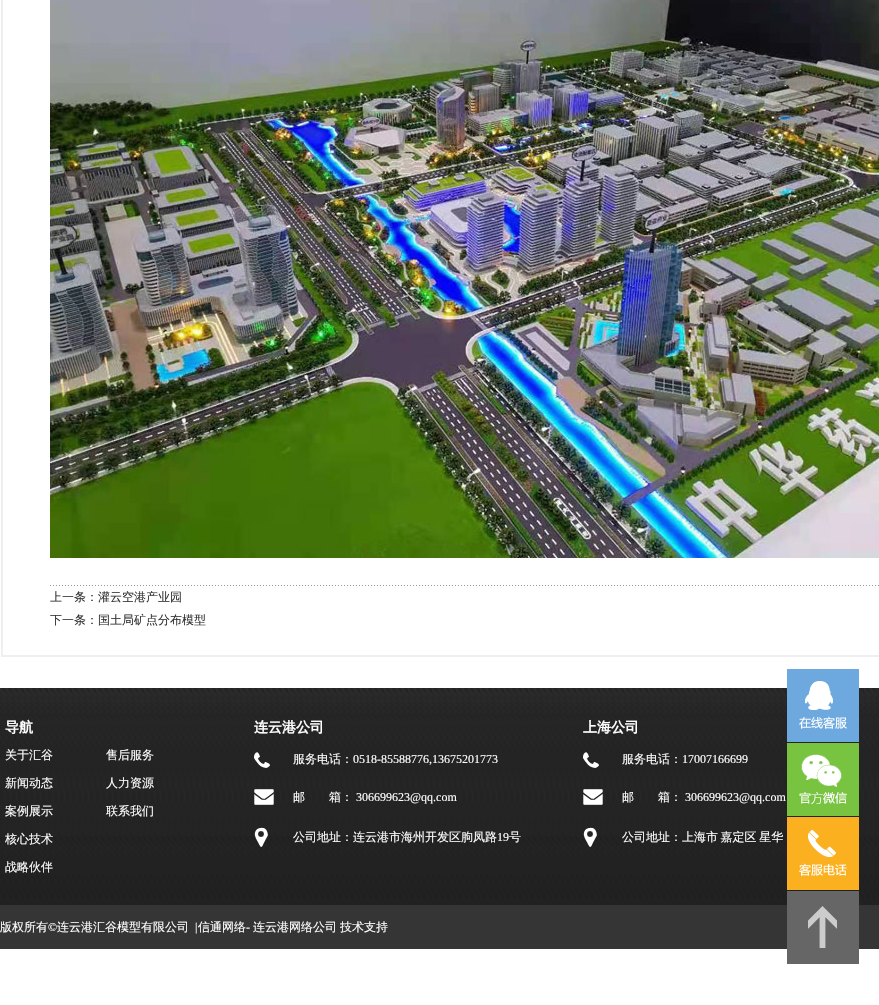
void draw(SkCanvas* canvas) {
    SkPaint paint;
    paint.setAntiAlias(true);
    auto face = [&](const char* family, int weight, float size, bool italic = false) {
        SkFontStyle style(weight, SkFontStyle::kNormal_Width,
            italic ? SkFontStyle::kItalic_Slant : SkFontStyle::kUpright_Slant);
        SkFont result(fontMgr->matchFamilyStyle(family, style), size);
        result.setSubpixel(true);
        return result;
    };
    auto write = [&](const char* s, float x, float y, const SkFont& font, SkColor color) {
        SkPaint ink(SkColor4f::FromColor(color));
        ink.setAntiAlias(true);
        canvas->drawString(s, x, y, font, ink);
    };
    auto writeSpaced = [&](const char* s, float x, float y, const SkFont& font, const SkPaint& ink, float letter, float word) {
        std::vector<SkGlyphID> glyphs(font.countText(s, strlen(s), SkTextEncoding::kUTF8));
        std::vector<float> xs(glyphs.size());
        font.textToGlyphs(s, strlen(s), SkTextEncoding::kUTF8, glyphs);
        font.getXPos(glyphs, xs, x);
        float extra = 0;
        for (size_t i = 0; i < glyphs.size(); i++) {
            xs[i] += extra;
            extra += letter + word * (glyphs[i] == font.unicharToGlyph(' '));
        }
        canvas->drawTextBlob(SkTextBlob::MakeFromPosHGlyphs(glyphs, xs, y, font), 0, 0, ink);
    };
    auto block = [&](float x, float y, float w, float h, SkColor color) {
        SkPaint ink(SkColor4f::FromColor(color));
        ink.setAntiAlias(true);
        canvas->drawRect(SkRect::MakeXYWH(x, y, w, h), ink);
    };
    auto paste = [&](const char* path, float x, float y, float w, float h) {
        auto image = SkImages::DeferredFromEncodedData(SkData::MakeFromFileName(path));
        canvas->drawImageRect(image, SkRect::MakeXYWH(x, y, w, h), SkSamplingOptions());
    };
    canvas->clear(SK_ColorWHITE);
    paint.setStyle(SkPaint::kStroke_Style);
    paint.setStrokeWidth(2);
    paint.setColor(SkColorSetRGB(239, 239, 239));
    canvas->drawRect(SkRect::MakeXYWH(2, -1, 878, 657), paint);
    paste("pic1.png", 50, 0, 829, 558);
    paste("pic2.png", 50, 585, 829, 1);
    auto kFont1 = face("WenQuanYi Zen Hei", 500, 12);
    write("上一条：灌云空港产业园", 50, 601, kFont1, SkColorSetRGB(51, 51, 51));
    write("下一条：国土局矿点分布模型", 50, 624, kFont1, SkColorSetRGB(51, 51, 51));
    paste("pic3.png", 0, 688, 879, 261);
    auto kFont2 = face("WenQuanYi Zen Hei", 700, 14);
    write("导航", 5, 732, kFont2, SK_ColorWHITE);
    write("关于汇谷", 5, 759, kFont1, SK_ColorWHITE);
    write("售后服务", 106, 759, kFont1, SK_ColorWHITE);
    write("新闻动态", 5, 787, kFont1, SK_ColorWHITE);
    write("人力资源", 106, 787, kFont1, SK_ColorWHITE);
    write("案例展示", 5, 815, kFont1, SK_ColorWHITE);
    write("联系我们", 106, 815, kFont1, SK_ColorWHITE);
    write("核心技术", 5, 843, kFont1, SK_ColorWHITE);
    write("战略伙伴", 5, 871, kFont1, SK_ColorWHITE);
    write("连云港公司", 254, 732, kFont2, SK_ColorWHITE);
    write("上海公司", 583, 732, kFont2, SK_ColorWHITE);
    paste("pic4.png", 254, 752, 16, 16);
    write("服务电话：", 293, 763, kFont1, SK_ColorWHITE);
    auto kFont3 = face("Liberation Serif", 400, 12);
    write("0518-85588776,13675201773", 353, 763, kFont3, SK_ColorWHITE);
    paste("pic5.png", 583, 752, 16, 16);
    write("服务电话：", 622, 763, kFont1, SK_ColorWHITE);
    write("17007166699", 682, 763, kFont3, SK_ColorWHITE);
    paste("pic6.png", 254, 789, 20, 16);
    write("邮　　箱：", 293, 801, kFont1, SK_ColorWHITE);
    write("306699623@qq.com", 356, 801, kFont3, SK_ColorWHITE);
    paste("pic7.png", 583, 789, 20, 16);
    write("邮　　箱：", 622, 801, kFont1, SK_ColorWHITE);
    write("306699623@qq.com", 685, 801, kFont3, SK_ColorWHITE);
    paste("pic8.png", 254, 827, 14, 20);
    write("公司地址：连云港市海州开发区朐凤路", 293, 841, kFont1, SK_ColorWHITE);
    write("19", 497, 841, kFont3, SK_ColorWHITE);
    write("号", 509, 841, kFont1, SK_ColorWHITE);
    paste("pic9.png", 583, 827, 14, 20);
    paint.setStyle(SkPaint::kFill_Style);
    paint.setColor(SK_ColorWHITE);
    writeSpaced("公司地址：上海市 嘉定区 星华", 622, 841, kFont1, paint, 0, -1);
    write("版权所有", 0, 931, kFont1, SK_ColorWHITE);
    write("©", 48, 931, kFont3, SK_ColorWHITE);
    write("连云港汇谷模型有限公司", 57, 931, kFont1, SK_ColorWHITE);
    write("|", 195, 931, kFont3, SK_ColorWHITE);
    write("信通网络", 198, 931, kFont1, SK_ColorWHITE);
    write("-", 246, 931, kFont3, SK_ColorWHITE);
    write("连云港网络公司", 253, 931, kFont1, SK_ColorWHITE);
    write("技术支持", 340, 931, kFont1, SK_ColorWHITE);
    block(787, 669, 72, 73, SkColorSetRGB(109, 169, 222));
    paste("pic10.png", 799, 681, 48, 48);
    block(787, 743, 72, 73, SkColorSetRGB(120, 195, 64));
    paste("pic11.png", 799, 754, 48, 50);
    block(787, 817, 72, 73, SkColorSetRGB(251, 176, 31));
    paste("pic12.png", 799, 830, 48, 46);
    block(787, 891, 72, 73, SkColorSetRGB(102, 102, 102));
    paste("pic13.png", 808, 906, 29, 42);
}
